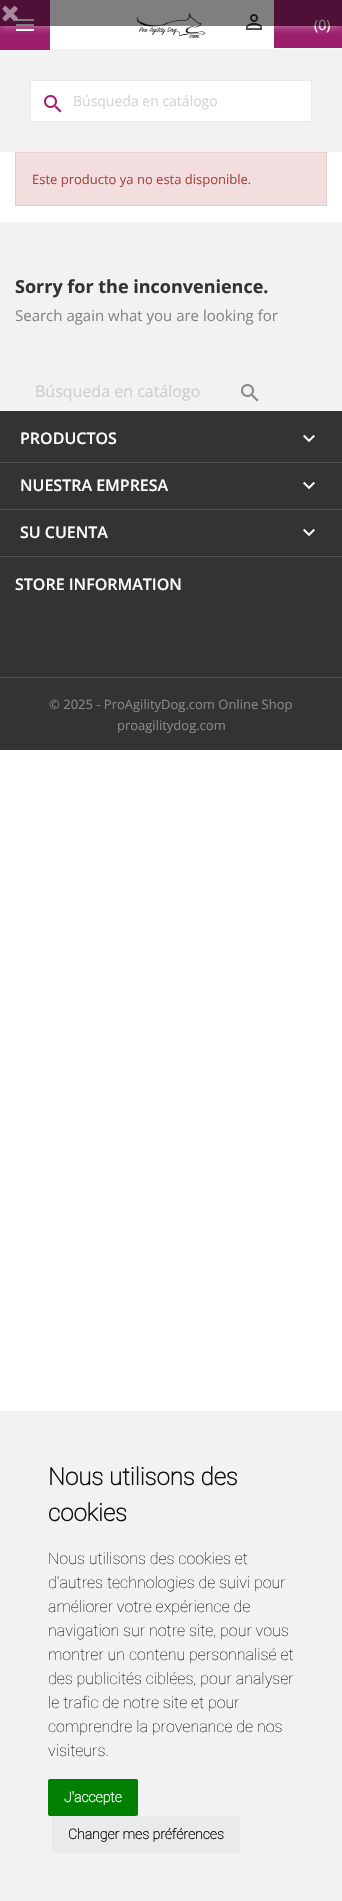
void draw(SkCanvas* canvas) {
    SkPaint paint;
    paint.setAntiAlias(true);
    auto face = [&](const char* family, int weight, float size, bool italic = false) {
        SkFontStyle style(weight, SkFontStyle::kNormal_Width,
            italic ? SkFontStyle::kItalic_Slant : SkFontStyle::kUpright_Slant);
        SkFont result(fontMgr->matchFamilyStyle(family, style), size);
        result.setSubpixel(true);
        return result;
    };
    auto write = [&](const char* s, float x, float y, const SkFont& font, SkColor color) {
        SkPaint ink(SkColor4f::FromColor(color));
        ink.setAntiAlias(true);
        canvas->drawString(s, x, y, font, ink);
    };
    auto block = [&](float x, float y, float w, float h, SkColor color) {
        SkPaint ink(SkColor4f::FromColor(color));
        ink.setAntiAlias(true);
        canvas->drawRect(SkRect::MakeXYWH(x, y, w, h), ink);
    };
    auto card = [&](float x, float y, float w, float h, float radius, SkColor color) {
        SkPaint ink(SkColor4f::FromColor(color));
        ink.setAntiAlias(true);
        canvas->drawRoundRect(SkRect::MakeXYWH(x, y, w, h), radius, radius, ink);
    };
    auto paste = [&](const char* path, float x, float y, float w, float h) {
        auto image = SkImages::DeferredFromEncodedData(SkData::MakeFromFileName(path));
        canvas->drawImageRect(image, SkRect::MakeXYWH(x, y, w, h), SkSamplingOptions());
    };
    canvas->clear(SK_ColorWHITE);
    block(0, 50, 342, 102, SkColorSetRGB(242, 242, 242));
    block(50, 49, 292, 1, SkColorSetRGB(242, 242, 242));
    block(0, 0, 50, 50, SkColorSetRGB(156, 31, 109));
    paste("pic1.png", 16, 19, 18, 12);
    paste("pic2.png", 136, 12, 70, 27);
    paste("pic3.png", 246, 14, 16, 16);
    block(274, 0, 68, 48, SkColorSetRGB(156, 31, 109));
    auto kFont1 = face("Open Sans", 400, 14);
    write("(0)", 314, 30, kFont1, SK_ColorWHITE);
    paint.setColor(SK_ColorWHITE);
    canvas->drawRoundRect(SkRect::MakeXYWH(30.5f, 80.5f, 281, 41), 2.5f, 2.5f, paint);
    paint.setStyle(SkPaint::kStroke_Style);
    paint.setStrokeWidth(1);
    paint.setColor(SkColorSetRGB(235, 235, 235));
    canvas->drawRoundRect(SkRect::MakeXYWH(30.5f, 80.5f, 281, 41), 2.5f, 2.5f, paint);
    paste("pic4.png", 44, 95, 18, 18);
    write("Búsqueda en catálogo", 73, 106, kFont1, SkColorSetRGB(213, 212, 211));
    paint.setStyle(SkPaint::kFill_Style);
    paint.setColor(SkColorSetRGB(242, 222, 222));
    canvas->drawRect(SkRect::MakeXYWH(15.5f, 152.5f, 311, 53), paint);
    paint.setStyle(SkPaint::kStroke_Style);
    paint.setColor(SkColorSetRGB(235, 204, 204));
    canvas->drawRect(SkRect::MakeXYWH(15.5f, 152.5f, 311, 53), paint);
    auto kFont2 = face("Open Sans", 400, 13);
    write("Este producto ya no esta disponible.", 32, 184, kFont2, SkColorSetRGB(169, 68, 66));
    block(0, 222, 342, 189, SkColorSetRGB(242, 242, 242));
    auto kFont3 = face("Open Sans", 700, 18);
    write("Sorry for the inconvenience.", 15, 293, kFont3, SkColorSetRGB(51, 51, 51));
    auto kFont4 = face("Open Sans", 400, 15);
    write("Search again what you are looking for", 15, 321, kFont4, SkColorSetRGB(135, 135, 135));
    auto kFont5 = face("Open Sans", 400, 16);
    write("Búsqueda en catálogo", 35, 397, kFont5, SkColorSetRGB(207, 206, 204));
    paste("pic5.png", 241, 384, 18, 18);
    block(0, 411, 342, 339, SkColorSetRGB(51, 51, 51));
    canvas->save();
    canvas->clipRect(SkRect::MakeXYWH(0, 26, 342, 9));
    paint.setStyle(SkPaint::kFill_Style);
    paint.setColor(SkColorSetARGB(128, 255, 255, 255));
    paint.setMaskFilter(SkMaskFilter::MakeBlur(kNormal_SkBlurStyle, 5));
    canvas->drawRect(SkRect::MakeXYWH(0, 0, 342, 26), paint);
    paint.setMaskFilter(nullptr);
    canvas->restore();
    block(0, 0, 342, 26, SkColorSetARGB(128, 0, 0, 0));
    paste("pic6.png", 2, 6, 16, 16);
    block(0, 462, 342, 1, SkColorSetRGB(81, 81, 81));
    auto kFont6 = face("Open Sans", 600, 16);
    write("PRODUCTOS", 20, 444, kFont6, SK_ColorWHITE);
    paste("pic7.png", 303, 434, 12, 9);
    block(0, 509, 342, 1, SkColorSetRGB(81, 81, 81));
    write("NUESTRA EMPRESA", 20, 491, kFont6, SK_ColorWHITE);
    paste("pic7.png", 303, 481, 12, 9);
    block(0, 556, 342, 1, SkColorSetRGB(81, 81, 81));
    write("SU CUENTA", 20, 538, kFont6, SK_ColorWHITE);
    paste("pic7.png", 303, 528, 12, 9);
    write("STORE INFORMATION", 15, 590, kFont6, SK_ColorWHITE);
    block(0, 677, 342, 1, SkColorSetRGB(81, 81, 81));
    write("© 2025 - ProAgilityDog.com Online Shop", 49, 709, kFont2, SkColorSetRGB(135, 135, 135));
    write("proagilitydog.com", 117, 730, kFont2, SkColorSetRGB(135, 135, 135));
    block(0, 1411, 342, 490, SkColorSetRGB(242, 242, 242));
    auto kFont7 = face("Roboto", 700, 24);
    write("Nous utilisons des", 48, 1485, kFont7, SkColorSetRGB(17, 17, 17));
    write("cookies", 48, 1521, kFont7, SkColorSetRGB(17, 17, 17));
    auto kFont8 = face("Roboto", 100, 16);
    write("Nous utilisons des cookies et", 48, 1564, kFont8, SkColorSetRGB(17, 17, 17));
    write("d'autres technologies de suivi pour", 48, 1588, kFont8, SkColorSetRGB(17, 17, 17));
    write("améliorer votre expérience de", 48, 1612, kFont8, SkColorSetRGB(17, 17, 17));
    write("navigation sur notre site, pour vous", 48, 1636, kFont8, SkColorSetRGB(17, 17, 17));
    write("montrer un contenu personnalisé et", 48, 1660, kFont8, SkColorSetRGB(17, 17, 17));
    write("des publicités ciblées, pour analyser", 48, 1684, kFont8, SkColorSetRGB(17, 17, 17));
    write("le trafic de notre site et pour", 48, 1708, kFont8, SkColorSetRGB(17, 17, 17));
    write("comprendre la provenance de nos", 48, 1732, kFont8, SkColorSetRGB(17, 17, 17));
    write("visiteurs.", 48, 1756, kFont8, SkColorSetRGB(17, 17, 17));
    card(48, 1779, 90, 37, 2, SkColorSetRGB(0, 128, 0));
    auto kFont9 = face("Roboto", 700, 14);
    write("J'accepte", 64, 1802, kFont9, SK_ColorWHITE);
    card(52, 1816, 188, 37, 2, SkColorSetRGB(234, 234, 234));
    write("Changer mes préférences", 68, 1839, kFont9, SkColorSetRGB(17, 17, 17));
}
